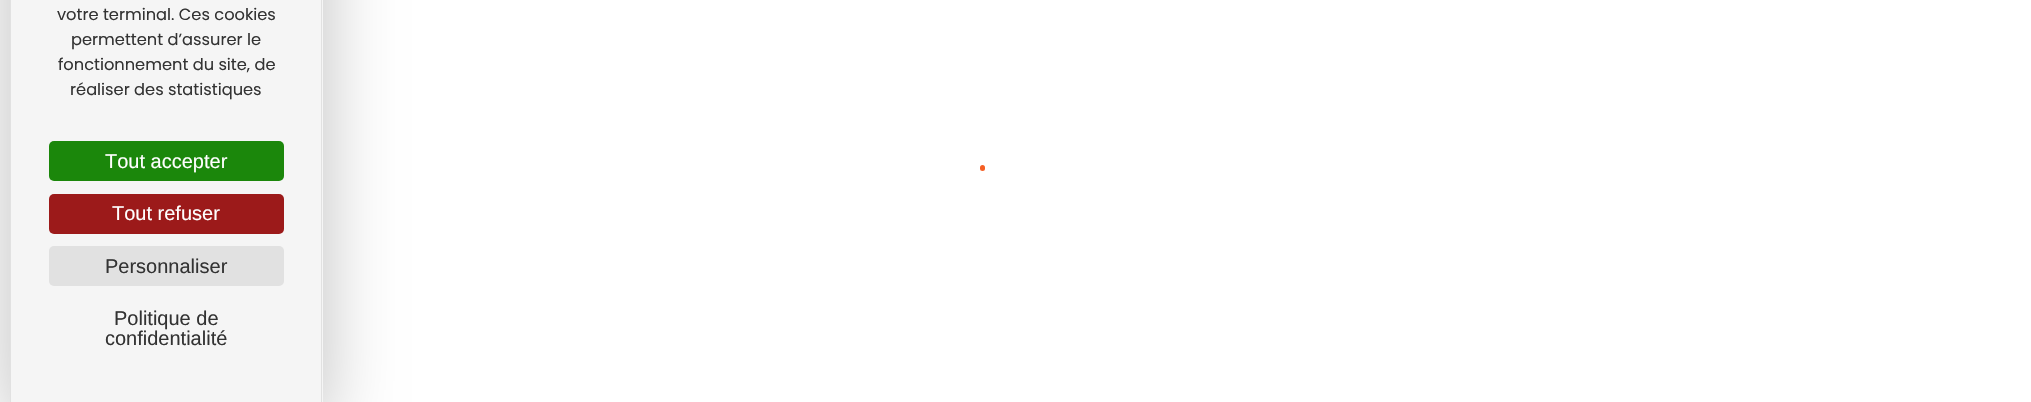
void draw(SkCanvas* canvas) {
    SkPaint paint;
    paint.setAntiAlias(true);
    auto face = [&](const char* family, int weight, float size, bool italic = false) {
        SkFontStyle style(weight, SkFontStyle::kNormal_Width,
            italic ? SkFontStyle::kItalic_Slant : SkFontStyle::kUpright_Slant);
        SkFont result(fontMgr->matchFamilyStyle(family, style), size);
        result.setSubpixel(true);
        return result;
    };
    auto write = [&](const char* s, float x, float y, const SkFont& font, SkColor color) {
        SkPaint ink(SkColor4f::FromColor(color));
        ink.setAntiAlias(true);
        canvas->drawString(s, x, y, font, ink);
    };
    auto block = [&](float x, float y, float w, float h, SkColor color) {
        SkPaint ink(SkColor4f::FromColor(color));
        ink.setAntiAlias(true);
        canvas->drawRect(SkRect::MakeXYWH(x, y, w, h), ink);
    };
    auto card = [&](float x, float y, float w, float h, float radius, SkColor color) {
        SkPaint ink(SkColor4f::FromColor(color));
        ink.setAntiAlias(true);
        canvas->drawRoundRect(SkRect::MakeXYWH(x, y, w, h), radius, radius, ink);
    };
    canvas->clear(SK_ColorWHITE);
    paint.setColor(SkColorSetARGB(64, 0, 0, 0));
    paint.setMaskFilter(SkMaskFilter::MakeBlur(kNormal_SkBlurStyle, 37.5f));
    canvas->drawRoundRect(SkRect::MakeXYWH(10, -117, 313, 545), 6, 6, paint);
    paint.setMaskFilter(nullptr);
    block(11, 0, 312, 402, SkColorSetRGB(245, 245, 245));
    paint.setColor(SkColorSetRGB(225, 225, 225));
    canvas->drawPath(SkPathBuilder(SkPathFillType::kEvenOdd).moveTo(16, -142).lineTo(316, -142).cubicTo(320, -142, 322, -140, 322, -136).lineTo(322, 402).lineTo(10, 402).lineTo(10, -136).cubicTo(10, -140, 13, -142, 16, -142).close().moveTo(16, -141).lineTo(316, -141).cubicTo(319, -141, 321, -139, 321, -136).lineTo(321, 402).lineTo(11, 402).lineTo(11, -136).cubicTo(11, -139, 13, -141, 16, -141).close().detach(), paint);
    auto kFont1 = face("Poppins", 400, 16.25f);
    write("votre terminal. Ces cookies", 57, 20, kFont1, SkColorSetRGB(51, 51, 51));
    write("permettent d’assurer le", 71, 45, kFont1, SkColorSetRGB(51, 51, 51));
    write("fonctionnement du site, de", 58, 70, kFont1, SkColorSetRGB(51, 51, 51));
    write("réaliser des statistiques", 70, 95, kFont1, SkColorSetRGB(51, 51, 51));
    card(49, 141, 235, 40, 5, SkColorSetRGB(27, 135, 11));
    auto kFont2 = face("Liberation Sans", 400, 20);
    write("Tout accepter", 105, 168, kFont2, SK_ColorWHITE);
    card(49, 194, 235, 40, 5, SkColorSetRGB(156, 26, 26));
    write("Tout refuser", 112, 220, kFont2, SK_ColorWHITE);
    card(49, 246, 235, 40, 5, SkColorSetRGB(225, 225, 225));
    write("Personnaliser", 105, 273, kFont2, SkColorSetRGB(51, 51, 51));
    write("Politique de", 114, 325, kFont2, SkColorSetRGB(51, 51, 51));
    write("confidentialité", 105, 345, kFont2, SkColorSetRGB(51, 51, 51));
    card(980, 165, 5, 6, 2.5f, SkColorSetRGB(245, 95, 36));
}
